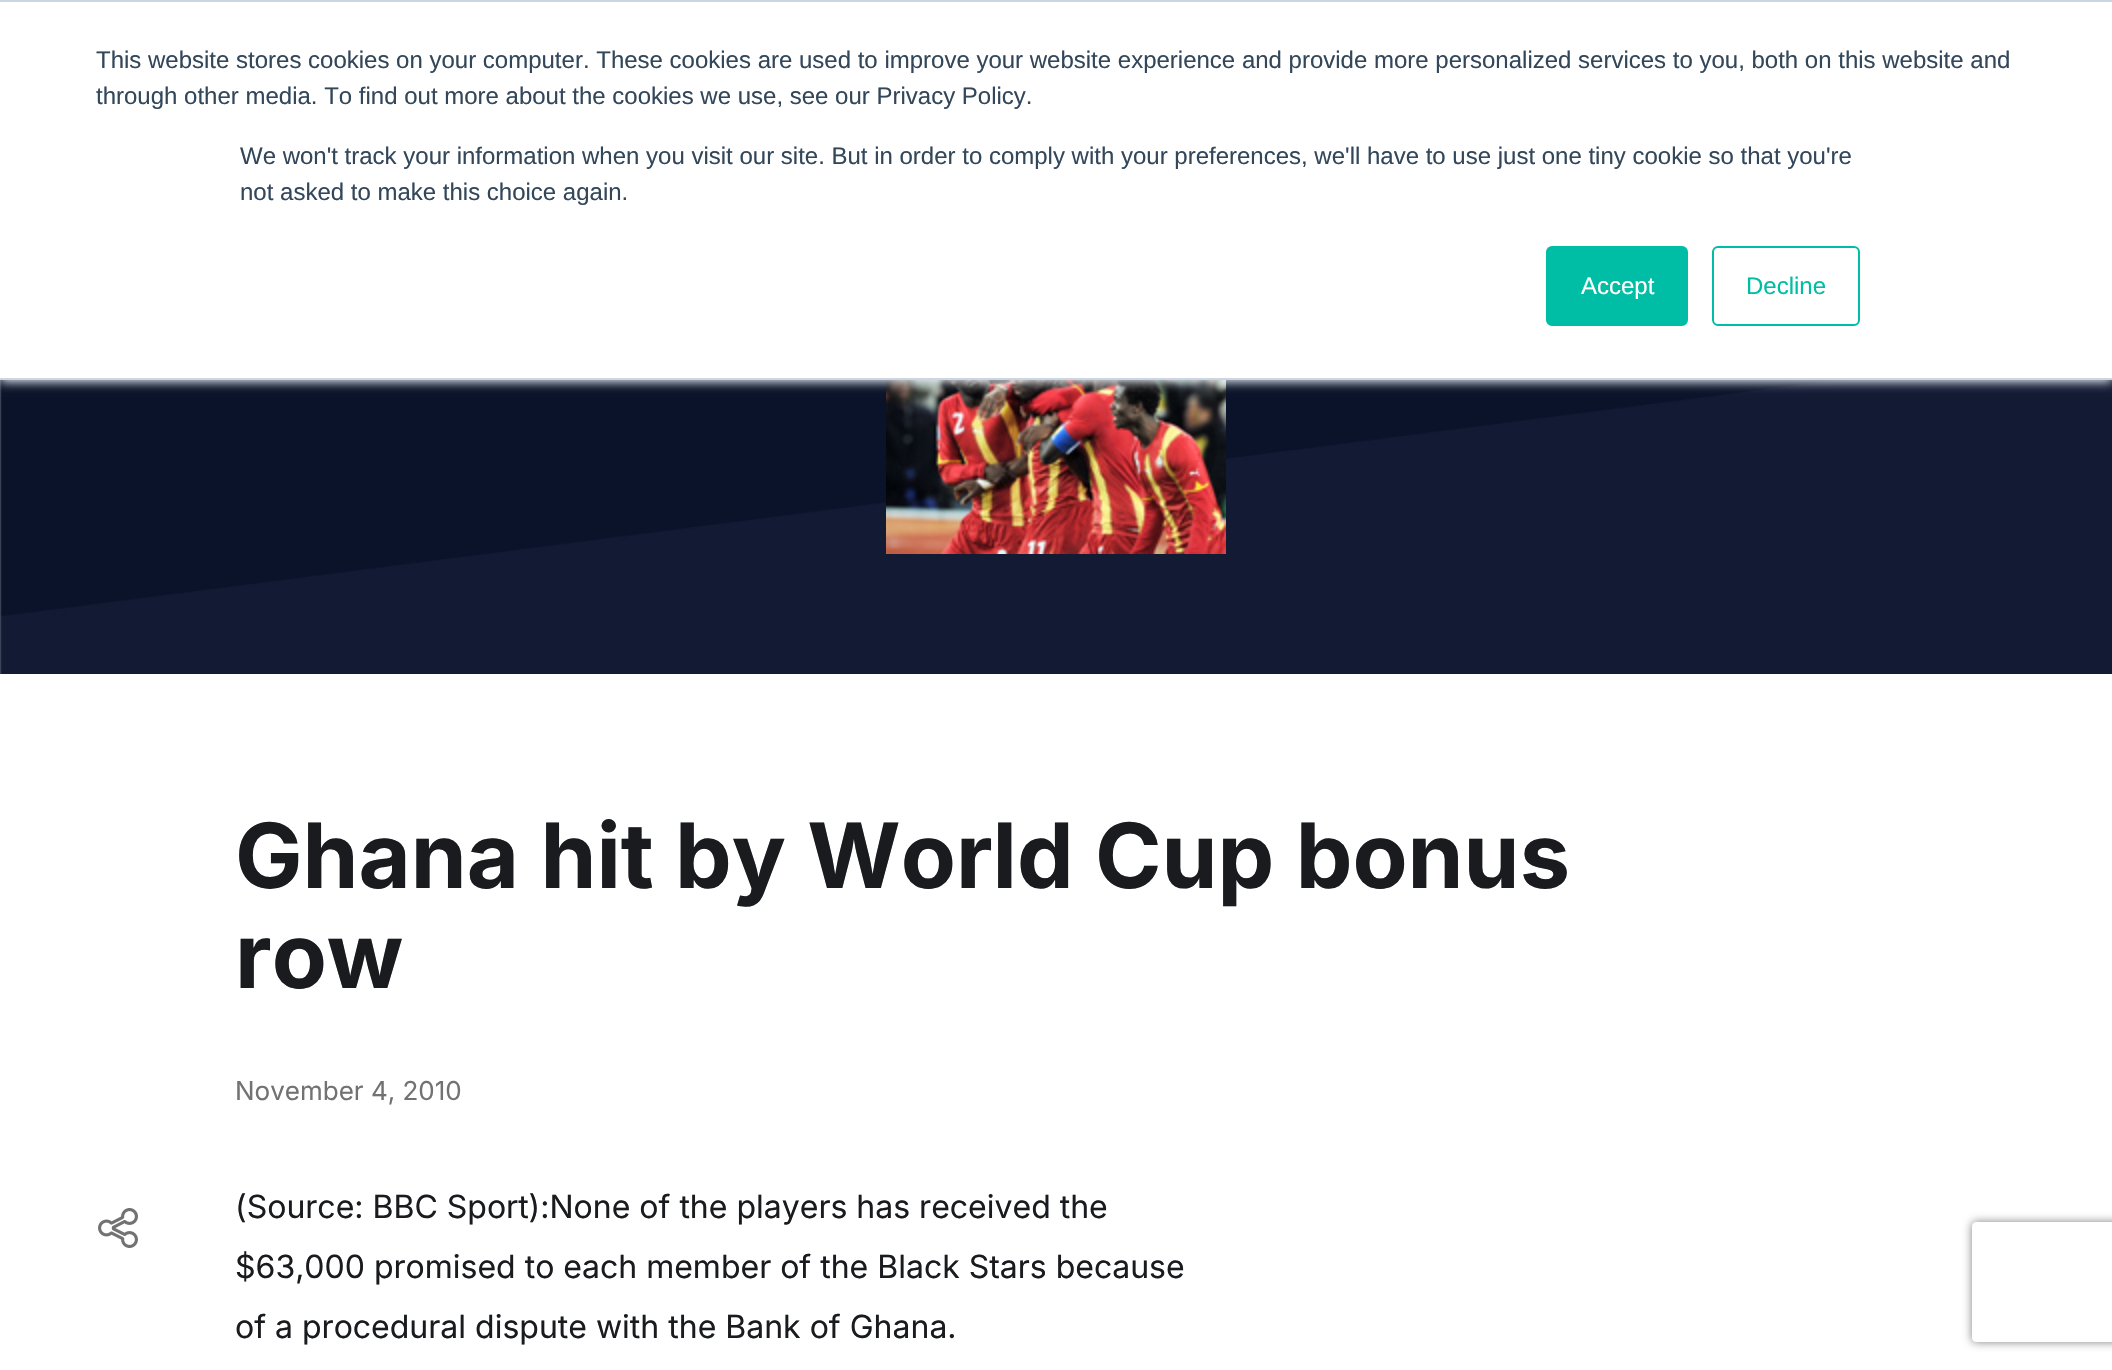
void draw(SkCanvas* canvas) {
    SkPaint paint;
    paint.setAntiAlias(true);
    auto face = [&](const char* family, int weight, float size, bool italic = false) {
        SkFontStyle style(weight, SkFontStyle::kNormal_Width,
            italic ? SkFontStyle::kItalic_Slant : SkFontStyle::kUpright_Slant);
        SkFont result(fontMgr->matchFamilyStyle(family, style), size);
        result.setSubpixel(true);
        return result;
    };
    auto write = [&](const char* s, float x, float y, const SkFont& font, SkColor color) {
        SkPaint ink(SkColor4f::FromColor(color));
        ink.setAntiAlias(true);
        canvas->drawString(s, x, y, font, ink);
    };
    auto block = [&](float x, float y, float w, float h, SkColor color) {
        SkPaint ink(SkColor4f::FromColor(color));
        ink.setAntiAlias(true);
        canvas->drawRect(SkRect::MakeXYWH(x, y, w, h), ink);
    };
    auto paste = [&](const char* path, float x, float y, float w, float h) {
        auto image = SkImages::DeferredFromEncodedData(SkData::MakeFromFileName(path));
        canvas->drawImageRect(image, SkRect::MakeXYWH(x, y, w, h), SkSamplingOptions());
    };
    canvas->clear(SK_ColorWHITE);
    paste("pic1.png", 0, 380, 2112, 294);
    paste("pic2.png", 886, 380, 340, 174);
    paint.setColor(SkColorSetRGB(234, 240, 246));
    paint.setMaskFilter(SkMaskFilter::MakeBlur(kNormal_SkBlurStyle, 5));
    canvas->drawRect(SkRect::MakeXYWH(0, 2, 2112, 380), paint);
    paint.setMaskFilter(nullptr);
    block(0, 2, 2112, 376, SK_ColorWHITE);
    block(0, 0, 2112, 2, SkColorSetRGB(203, 214, 226));
    block(0, 378, 2112, 2, SkColorSetRGB(203, 214, 226));
    auto kFont1 = face("Liberation Sans", 400, 24);
    write("This website stores cookies on your computer. These cookies are used to improve your website experience and provide more personalized services to you, both on this website and", 96, 68, kFont1, SkColorSetRGB(51, 71, 91));
    write("through other media. To find out more about the cookies we use, see our Privacy Policy.", 96, 104, kFont1, SkColorSetRGB(51, 71, 91));
    write("We won't track your information when you visit our site. But in order to comply with your preferences, we'll have to use just one tiny cookie so that you're", 240, 164, kFont1, SkColorSetRGB(51, 71, 91));
    write("not asked to make this choice again.", 240, 200, kFont1, SkColorSetRGB(51, 71, 91));
    paint.setColor(SkColorSetRGB(0, 189, 165));
    canvas->drawRoundRect(SkRect::MakeXYWH(1547, 247, 140, 78), 5, 5, paint);
    paint.setStyle(SkPaint::kStroke_Style);
    paint.setStrokeWidth(2);
    canvas->drawRoundRect(SkRect::MakeXYWH(1547, 247, 140, 78), 5, 5, paint);
    write("Accept", 1581, 294, kFont1, SK_ColorWHITE);
    canvas->drawRoundRect(SkRect::MakeXYWH(1713, 247, 146, 78), 5, 5, paint);
    write("Decline", 1746, 294, kFont1, SkColorSetRGB(0, 189, 165));
    auto kFont2 = face("Inter", 700, 90);
    write("Ghana hit by World Cup bonus", 235, 888, kFont2, SkColorSetRGB(25, 27, 31));
    write("row", 235, 988, kFont2, SkColorSetRGB(25, 27, 31));
    auto kFont3 = face("Inter", 400, 26);
    write("November 4, 2010", 235, 1100, kFont3, SkColorSetRGB(114, 114, 114));
    paste("pic3.png", 98, 1208, 40, 40);
    auto kFont4 = face("Inter", 400, 32);
    write("(Source: BBC Sport):None of the players has received the", 235, 1218, kFont4, SkColorSetRGB(25, 27, 31));
    write("$63,000 promised to each member of the Black Stars because", 235, 1278, kFont4, SkColorSetRGB(25, 27, 31));
    write("of a procedural dispute with the Bank of Ghana.", 235, 1338, kFont4, SkColorSetRGB(25, 27, 31));
    canvas->save();
    canvas->clipPath(SkPathBuilder(SkPathFillType::kEvenOdd).moveTo(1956, 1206).lineTo(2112, 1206).lineTo(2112, 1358).lineTo(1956, 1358).close().moveTo(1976, 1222).lineTo(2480, 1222).cubicTo(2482, 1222, 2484, 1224, 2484, 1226).lineTo(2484, 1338).cubicTo(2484, 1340, 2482, 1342, 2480, 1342).lineTo(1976, 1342).cubicTo(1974, 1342, 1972, 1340, 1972, 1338).lineTo(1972, 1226).cubicTo(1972, 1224, 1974, 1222, 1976, 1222).close().detach(), true);
    paint.setStyle(SkPaint::kFill_Style);
    paint.setColor(SkColorSetRGB(128, 128, 128));
    paint.setMaskFilter(SkMaskFilter::MakeBlur(kNormal_SkBlurStyle, 5));
    canvas->drawRoundRect(SkRect::MakeXYWH(1972, 1222, 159, 120), 4, 4, paint);
    paint.setMaskFilter(nullptr);
    canvas->restore();
}
